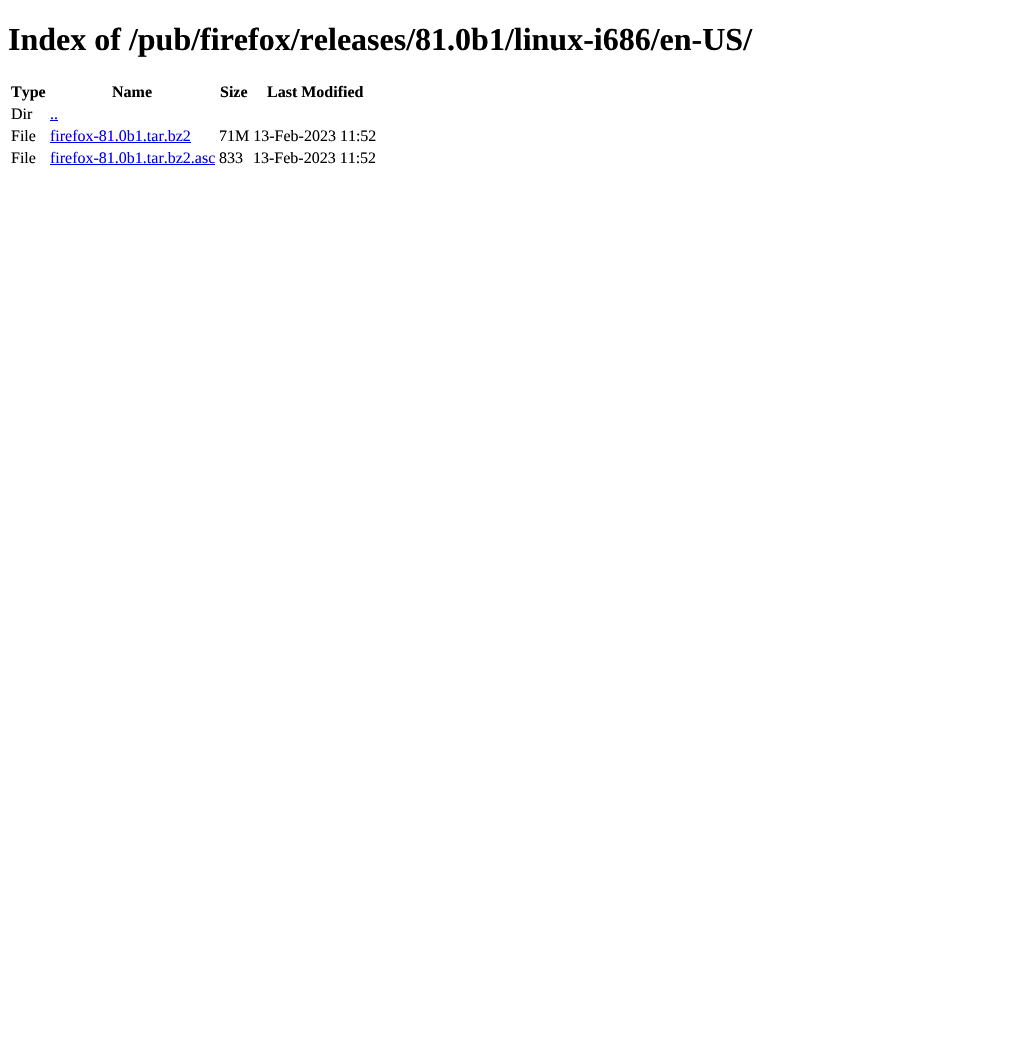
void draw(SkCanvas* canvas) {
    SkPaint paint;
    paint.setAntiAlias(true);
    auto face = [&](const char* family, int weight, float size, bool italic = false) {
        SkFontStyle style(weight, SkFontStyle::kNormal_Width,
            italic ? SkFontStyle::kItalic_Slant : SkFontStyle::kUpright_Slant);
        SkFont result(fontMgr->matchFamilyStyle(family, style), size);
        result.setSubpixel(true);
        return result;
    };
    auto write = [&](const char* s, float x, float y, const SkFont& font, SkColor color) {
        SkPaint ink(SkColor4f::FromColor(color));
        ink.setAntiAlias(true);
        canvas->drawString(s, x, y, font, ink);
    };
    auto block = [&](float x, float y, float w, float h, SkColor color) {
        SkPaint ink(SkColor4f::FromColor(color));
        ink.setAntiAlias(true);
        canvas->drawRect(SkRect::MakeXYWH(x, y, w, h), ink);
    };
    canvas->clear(SK_ColorWHITE);
    auto kFont1 = face("Liberation Serif", 700, 32);
    write("Index of /pub/firefox/releases/81.0b1/linux-i686/en-US/", 8, 50, kFont1, SK_ColorBLACK);
    auto kFont2 = face("Liberation Serif", 700, 16);
    write("Type", 11, 97, kFont2, SK_ColorBLACK);
    write("Name", 112, 97, kFont2, SK_ColorBLACK);
    write("Size", 220, 97, kFont2, SK_ColorBLACK);
    write("Last Modified", 267, 97, kFont2, SK_ColorBLACK);
    auto kFont3 = face("Liberation Serif", 400, 16);
    write("Dir", 11, 119, kFont3, SK_ColorBLACK);
    write("..", 50, 119, kFont3, SkColorSetRGB(0, 0, 238));
    block(50, 120, 8, 1, SkColorSetRGB(0, 0, 238));
    write("File", 11, 141, kFont3, SK_ColorBLACK);
    write("firefox-81.0b1.tar.bz2", 50, 141, kFont3, SkColorSetRGB(0, 0, 238));
    block(50, 142, 141, 1, SkColorSetRGB(0, 0, 238));
    write("71M 13-Feb-2023 11:52", 219, 141, kFont3, SK_ColorBLACK);
    write("File", 11, 163, kFont3, SK_ColorBLACK);
    write("firefox-81.0b1.tar.bz2.asc", 50, 163, kFont3, SkColorSetRGB(0, 0, 238));
    block(50, 164, 165, 1, SkColorSetRGB(0, 0, 238));
    write("833", 219, 163, kFont3, SK_ColorBLACK);
    write("13-Feb-2023 11:52", 253, 163, kFont3, SK_ColorBLACK);
}
